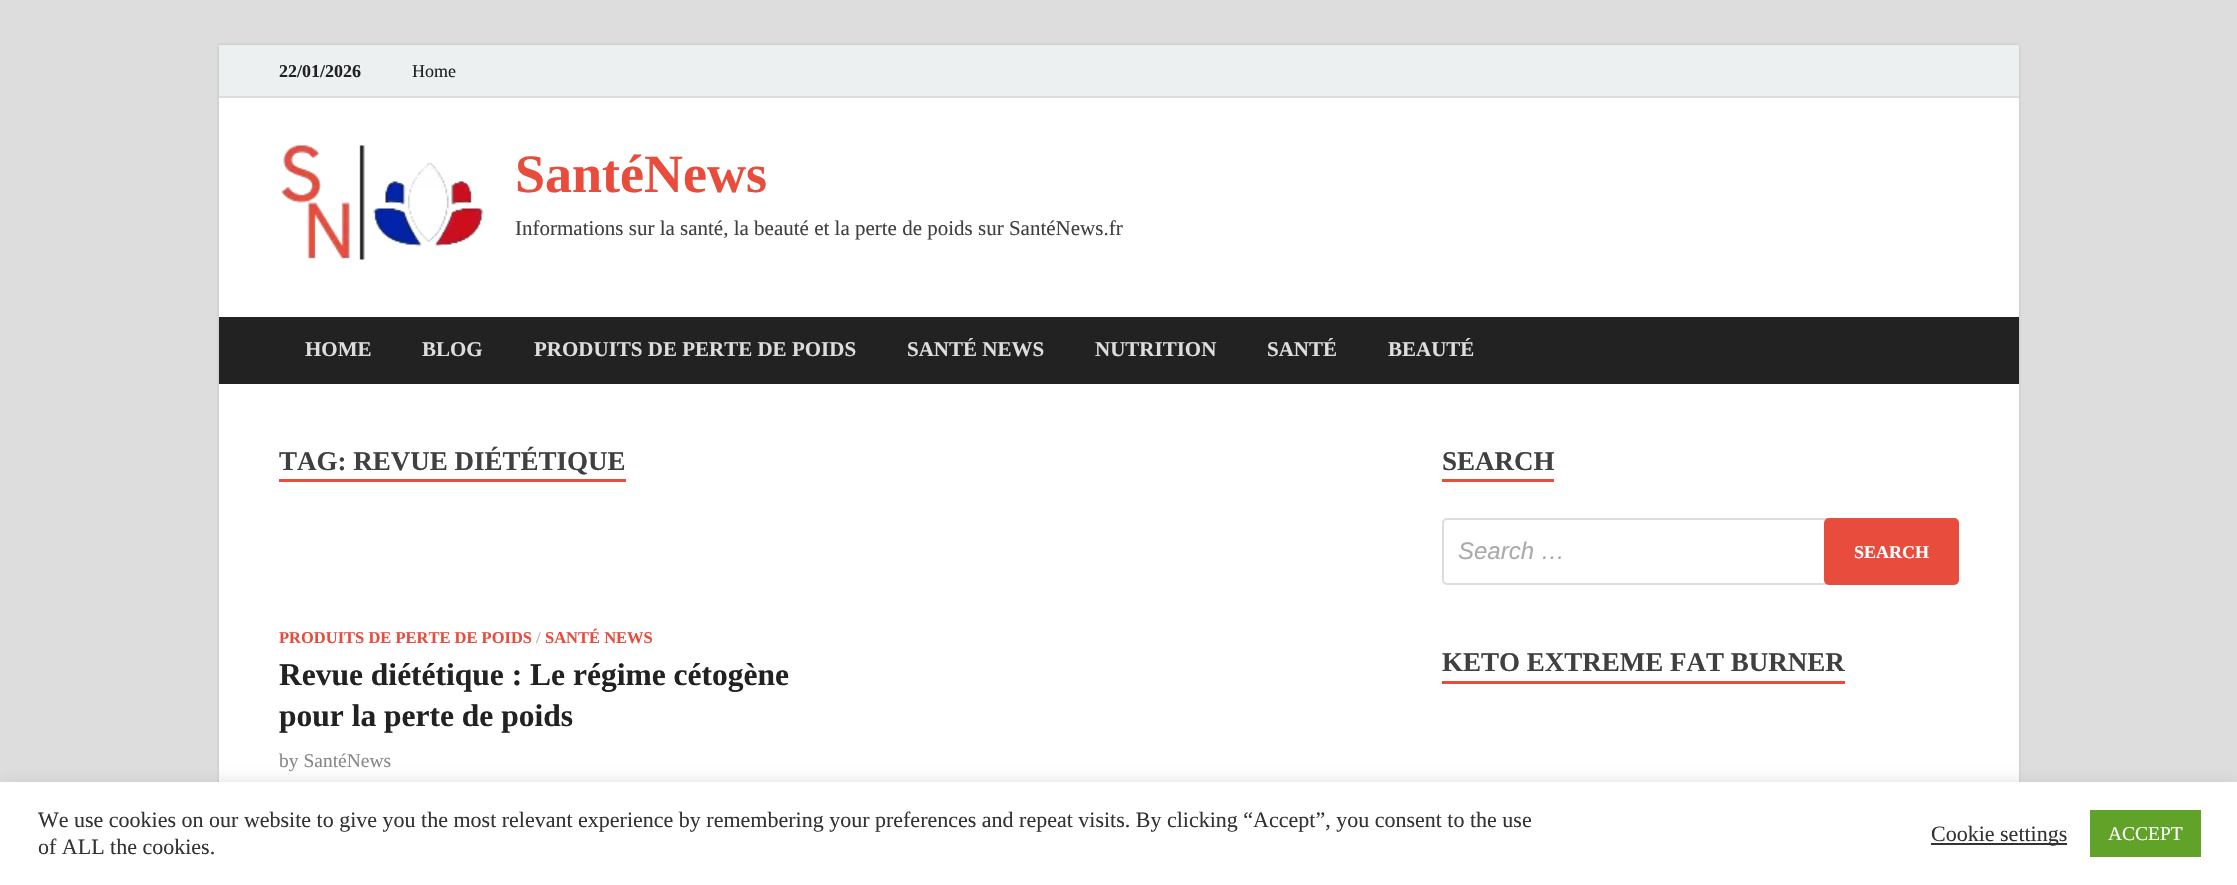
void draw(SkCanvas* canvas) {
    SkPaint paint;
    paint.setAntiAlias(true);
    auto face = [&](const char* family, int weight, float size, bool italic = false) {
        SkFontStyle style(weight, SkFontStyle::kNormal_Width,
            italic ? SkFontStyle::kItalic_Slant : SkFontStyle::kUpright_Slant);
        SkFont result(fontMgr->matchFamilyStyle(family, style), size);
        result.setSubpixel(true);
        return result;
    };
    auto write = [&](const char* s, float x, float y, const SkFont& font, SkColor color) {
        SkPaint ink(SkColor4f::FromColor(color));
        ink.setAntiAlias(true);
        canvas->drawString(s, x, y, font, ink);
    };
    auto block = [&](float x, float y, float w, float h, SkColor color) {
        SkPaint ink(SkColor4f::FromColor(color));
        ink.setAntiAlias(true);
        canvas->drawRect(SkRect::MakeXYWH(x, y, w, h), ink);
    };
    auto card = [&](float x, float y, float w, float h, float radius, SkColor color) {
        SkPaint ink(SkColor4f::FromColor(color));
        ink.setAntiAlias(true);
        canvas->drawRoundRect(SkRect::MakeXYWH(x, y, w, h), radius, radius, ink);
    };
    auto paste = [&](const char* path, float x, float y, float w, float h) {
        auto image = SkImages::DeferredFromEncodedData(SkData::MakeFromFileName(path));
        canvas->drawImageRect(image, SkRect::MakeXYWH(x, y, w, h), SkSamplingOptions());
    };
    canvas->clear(SkColorSetRGB(221, 221, 221));
    paint.setColor(SkColorSetRGB(187, 187, 187));
    paint.setMaskFilter(SkMaskFilter::MakeBlur(kNormal_SkBlurStyle, 1.5f));
    canvas->drawRect(SkRect::MakeXYWH(219, 45, 1800, 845), paint);
    paint.setMaskFilter(nullptr);
    block(219, 98, 1800, 684, SK_ColorWHITE);
    block(219, 45, 1800, 51, SkColorSetRGB(236, 240, 241));
    block(219, 96, 1800, 2, SkColorSetRGB(221, 221, 221));
    auto kFont1 = face("Liberation Serif", 700, 18);
    write("22/01/2026", 279, 77, kFont1, SkColorSetRGB(34, 34, 34));
    auto kFont2 = face("Liberation Serif", 400, 18);
    write("Home", 412, 77, kFont2, SkColorSetRGB(34, 34, 34));
    paste("pic1.png", 281, 145, 203, 115);
    auto kFont3 = face("Liberation Serif", 700, 54);
    write("SantéNews", 515, 192, kFont3, SkColorSetRGB(231, 76, 60));
    auto kFont4 = face("Liberation Serif", 400, 21);
    write("Informations sur la santé, la beauté et la perte de poids sur SantéNews.fr", 515, 235, kFont4, SkColorSetRGB(64, 64, 64));
    block(219, 317, 1800, 67, SkColorSetRGB(34, 34, 34));
    auto kFont5 = face("Liberation Serif", 700, 21);
    write("HOME", 305, 356, kFont5, SkColorSetRGB(221, 221, 221));
    write("BLOG", 422, 356, kFont5, SkColorSetRGB(221, 221, 221));
    write("PRODUITS DE PERTE DE POIDS", 534, 356, kFont5, SkColorSetRGB(221, 221, 221));
    write("SANTÉ NEWS", 907, 356, kFont5, SkColorSetRGB(221, 221, 221));
    write("NUTRITION", 1095, 356, kFont5, SkColorSetRGB(221, 221, 221));
    write("SANTÉ", 1267, 356, kFont5, SkColorSetRGB(221, 221, 221));
    write("BEAUTÉ", 1388, 356, kFont5, SkColorSetRGB(221, 221, 221));
    auto kFont6 = face("Liberation Serif", 700, 27);
    write("TAG: REVUE DIÉTÉTIQUE", 279, 470, kFont6, SkColorSetRGB(64, 64, 64));
    block(279, 479, 347, 3, SkColorSetRGB(231, 76, 60));
    auto kFont7 = face("Liberation Serif", 700, 16.5f);
    write("PRODUITS DE PERTE DE POIDS", 279, 643, kFont7, SkColorSetRGB(231, 76, 60));
    write("/", 536, 643, kFont7, SkColorSetRGB(187, 187, 187));
    write("SANTÉ NEWS", 545, 643, kFont7, SkColorSetRGB(231, 76, 60));
    auto kFont8 = face("Liberation Serif", 700, 31.5f);
    write("Revue diététique : Le régime cétogène", 279, 685, kFont8, SkColorSetRGB(34, 34, 34));
    write("pour la perte de poids", 279, 726, kFont8, SkColorSetRGB(34, 34, 34));
    auto kFont9 = face("Liberation Serif", 400, 19.5f);
    write("by SantéNews", 279, 767, kFont9, SkColorSetRGB(136, 136, 136));
    block(1442, 479, 112, 3, SkColorSetRGB(231, 76, 60));
    write("SEARCH", 1442, 470, kFont6, SkColorSetRGB(64, 64, 64));
    paint.setStyle(SkPaint::kStroke_Style);
    paint.setStrokeWidth(2);
    paint.setColor(SkColorSetRGB(221, 221, 221));
    canvas->drawRoundRect(SkRect::MakeXYWH(1443, 519, 515, 65), 4, 4, paint);
    auto kFont10 = face("Liberation Sans", 400, 24, true);
    write("Search …", 1458, 559, kFont10, SkColorSetRGB(170, 170, 170));
    card(1824, 518, 135, 67, 5, SkColorSetRGB(231, 76, 60));
    write("SEARCH", 1854, 558, kFont1, SK_ColorWHITE);
    block(1442, 681, 403, 3, SkColorSetRGB(231, 76, 60));
    write("KETO EXTREME FAT BURNER", 1442, 671, kFont6, SkColorSetRGB(64, 64, 64));
    paint.setStyle(SkPaint::kFill_Style);
    paint.setColor(SkColorSetARGB(77, 172, 171, 171));
    paint.setMaskFilter(SkMaskFilter::MakeBlur(kNormal_SkBlurStyle, 7.5f));
    canvas->drawRect(SkRect::MakeXYWH(0, 780, 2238, 104), paint);
    paint.setMaskFilter(nullptr);
    block(0, 782, 2237, 103, SK_ColorWHITE);
    auto kFont11 = face("Liberation Serif", 400, 22);
    write("We use cookies on our website to give you the most relevant experience by remembering your preferences and repeat visits. By clicking “Accept”, you consent to the use", 38, 827, kFont11, SkColorSetRGB(51, 51, 51));
    write("of ALL the cookies.", 38, 854, kFont11, SkColorSetRGB(51, 51, 51));
    block(1931, 843, 136, 2, SkColorSetRGB(51, 51, 51));
    write("Cookie settings", 1931, 841, kFont11, SkColorSetRGB(51, 51, 51));
    block(2090, 810, 111, 47, SkColorSetRGB(97, 162, 41));
    write("ACCEPT", 2108, 840, kFont9, SK_ColorWHITE);
}
